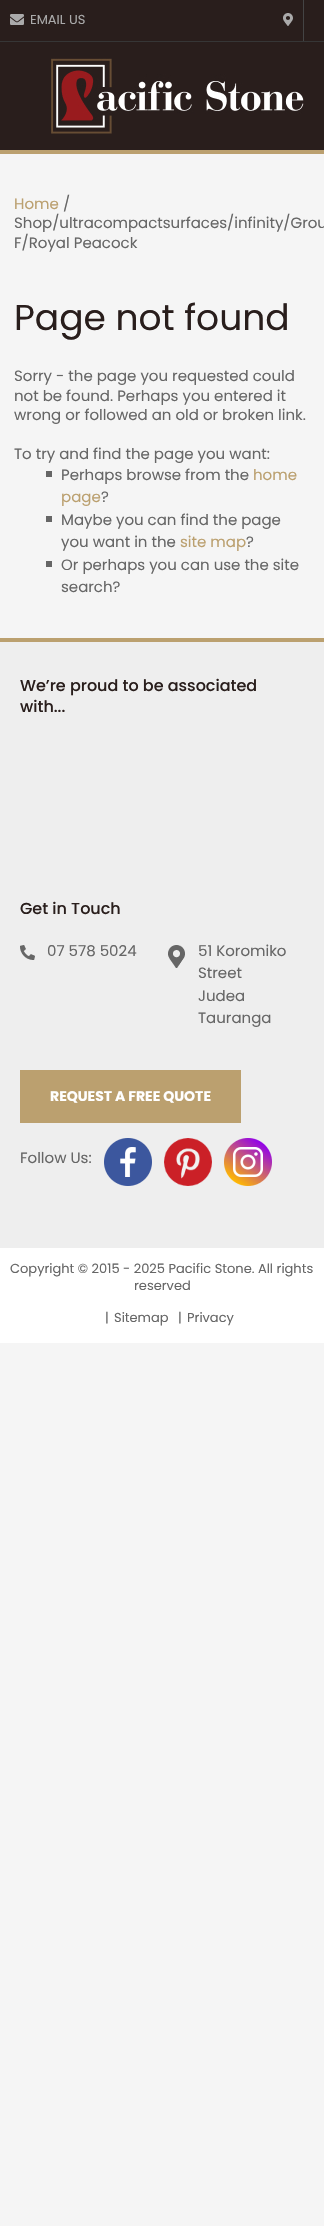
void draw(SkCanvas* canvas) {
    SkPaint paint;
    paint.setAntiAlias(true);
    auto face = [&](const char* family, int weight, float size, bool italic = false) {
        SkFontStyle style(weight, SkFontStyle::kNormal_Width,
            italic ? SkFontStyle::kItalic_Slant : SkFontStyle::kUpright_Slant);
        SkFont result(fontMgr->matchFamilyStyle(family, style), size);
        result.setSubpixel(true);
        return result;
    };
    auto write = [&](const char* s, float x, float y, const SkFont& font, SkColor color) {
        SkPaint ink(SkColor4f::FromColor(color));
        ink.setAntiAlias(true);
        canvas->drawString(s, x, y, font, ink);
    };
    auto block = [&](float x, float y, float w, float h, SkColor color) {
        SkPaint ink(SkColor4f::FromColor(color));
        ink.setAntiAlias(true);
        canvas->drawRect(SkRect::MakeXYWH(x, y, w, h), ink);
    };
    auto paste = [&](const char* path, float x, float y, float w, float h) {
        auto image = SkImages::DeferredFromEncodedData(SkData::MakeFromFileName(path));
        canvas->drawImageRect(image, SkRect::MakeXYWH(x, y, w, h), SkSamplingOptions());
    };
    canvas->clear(SkColorSetRGB(245, 245, 245));
    block(0, 0, 324, 150, SkColorSetRGB(41, 30, 28));
    block(0, 150, 324, 4, SkColorSetRGB(187, 160, 111));
    block(0, 41, 324, 1, SkColorSetRGB(54, 54, 54));
    paste("pic1.png", 10, 14, 14, 11);
    auto kFont1 = face("Poppins", 400, 13);
    write("EMAIL US", 30, 24, kFont1, SkColorSetRGB(170, 170, 170));
    block(303, 0, 1, 41, SkColorSetRGB(68, 68, 68));
    paste("pic2.png", 283, 13, 10, 13);
    paste("pic3.png", 51, 58, 253, 76);
    auto kFont2 = face("Poppins", 400, 15);
    write("Home", 14, 209, kFont2, SkColorSetRGB(187, 160, 111));
    write("/", 63, 209, kFont2, SkColorSetRGB(102, 102, 102));
    write("Shop/ultracompactsurfaces/infinity/Grou", 14, 228, kFont2, SkColorSetRGB(102, 102, 102));
    write("F/Royal Peacock", 14, 248, kFont2, SkColorSetRGB(102, 102, 102));
    auto kFont3 = face("Poppins", 400, 36);
    write("Page not found", 14, 330, kFont3, SkColorSetRGB(41, 30, 28));
    write("Sorry - the page you requested could", 14, 381, kFont2, SkColorSetRGB(102, 102, 102));
    write("not be found. Perhaps you entered it", 14, 401, kFont2, SkColorSetRGB(102, 102, 102));
    write("wrong or followed an old or broken link.", 14, 420, kFont2, SkColorSetRGB(102, 102, 102));
    write("To try and find the page you want:", 14, 459, kFont2, SkColorSetRGB(102, 102, 102));
    block(46, 471, 6, 6, SkColorSetRGB(102, 102, 102));
    write("Perhaps browse from the", 61, 480, kFont2, SkColorSetRGB(102, 102, 102));
    write("home", 253, 480, kFont2, SkColorSetRGB(187, 160, 111));
    write("page", 61, 502, kFont2, SkColorSetRGB(187, 160, 111));
    write("?", 101, 502, kFont2, SkColorSetRGB(102, 102, 102));
    block(46, 516, 6, 6, SkColorSetRGB(102, 102, 102));
    write("Maybe you can find the page", 61, 525, kFont2, SkColorSetRGB(102, 102, 102));
    write("you want in the", 61, 547, kFont2, SkColorSetRGB(102, 102, 102));
    write("site map", 180, 547, kFont2, SkColorSetRGB(187, 160, 111));
    write("?", 246, 547, kFont2, SkColorSetRGB(102, 102, 102));
    block(46, 561, 6, 6, SkColorSetRGB(102, 102, 102));
    write("Or perhaps you can use the site", 61, 570, kFont2, SkColorSetRGB(102, 102, 102));
    write("search?", 61, 592, kFont2, SkColorSetRGB(102, 102, 102));
    block(0, 642, 324, 606, SkColorSetRGB(238, 238, 238));
    block(0, 638, 324, 4, SkColorSetRGB(187, 160, 111));
    auto kFont4 = face("Poppins", 500, 16);
    write("We’re proud to be associated", 20, 691, kFont4, SkColorSetRGB(41, 30, 28));
    write("with...", 20, 712, kFont4, SkColorSetRGB(41, 30, 28));
    write("Get in Touch", 20, 914, kFont4, SkColorSetRGB(41, 30, 28));
    paste("pic4.png", 20, 945, 15, 15);
    write("07 578 5024", 47, 956, kFont2, SkColorSetRGB(102, 102, 102));
    paste("pic5.png", 168, 945, 17, 23);
    write("51 Koromiko", 198, 956, kFont2, SkColorSetRGB(102, 102, 102));
    write("Street", 198, 978, kFont2, SkColorSetRGB(102, 102, 102));
    write("Judea", 198, 1001, kFont2, SkColorSetRGB(102, 102, 102));
    write("Tauranga", 198, 1023, kFont2, SkColorSetRGB(102, 102, 102));
    block(20, 1070, 221, 53, SkColorSetRGB(187, 160, 111));
    auto kFont5 = face("Poppins", 700, 14);
    write("REQUEST A FREE QUOTE", 50, 1101, kFont5, SK_ColorWHITE);
    write("Follow Us:", 20, 1163, kFont2, SkColorSetRGB(102, 102, 102));
    paste("pic6.png", 104, 1138, 48, 48);
    paste("pic7.png", 164, 1138, 48, 48);
    paste("pic8.png", 224, 1138, 48, 48);
    block(0, 1248, 324, 95, SK_ColorWHITE);
    write("Copyright © 2015 - 2025 Pacific Stone. All rights", 10, 1273, kFont1, SkColorSetRGB(102, 102, 102));
    write("reserved", 134, 1290, kFont1, SkColorSetRGB(102, 102, 102));
    write("|", 105, 1322, kFont1, SkColorSetRGB(102, 102, 102));
    write("Sitemap", 114, 1322, kFont1, SkColorSetRGB(102, 102, 102));
    write("|", 178, 1322, kFont1, SkColorSetRGB(102, 102, 102));
    write("Privacy", 187, 1322, kFont1, SkColorSetRGB(102, 102, 102));
}
